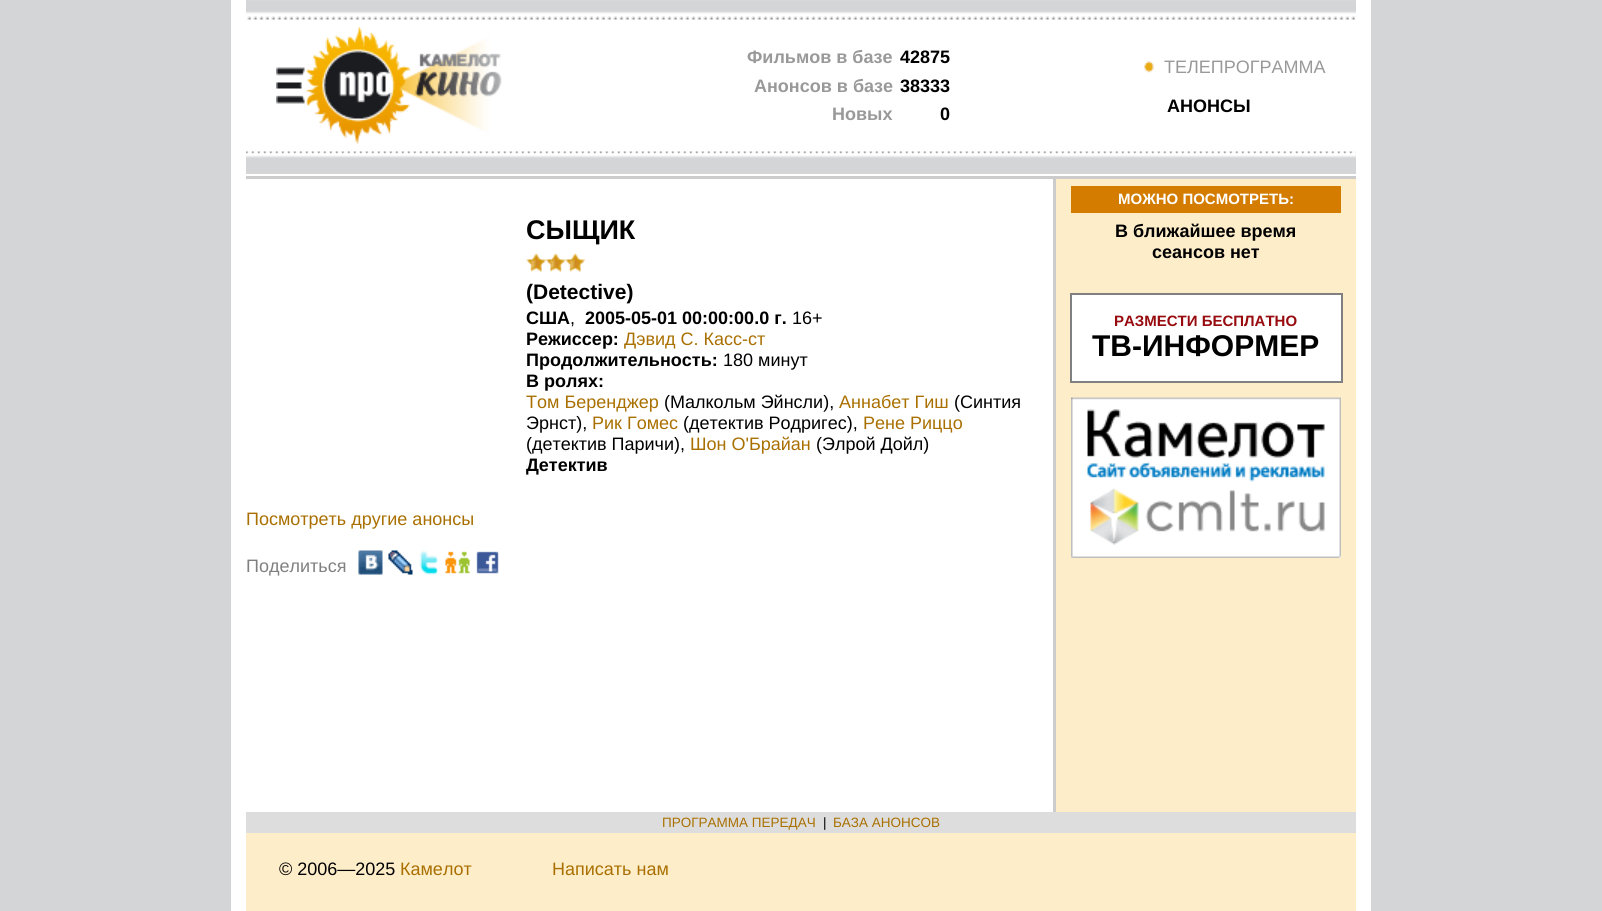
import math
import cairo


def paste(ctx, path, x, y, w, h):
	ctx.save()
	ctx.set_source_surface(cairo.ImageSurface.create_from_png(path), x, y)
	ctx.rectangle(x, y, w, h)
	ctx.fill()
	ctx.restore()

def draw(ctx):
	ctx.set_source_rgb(0.827, 0.835, 0.843)
	ctx.paint()
	ctx.set_source_rgb(1, 1, 1)
	ctx.rectangle(231, 0, 1140, 911)
	ctx.fill()
	paste(ctx, 'media/1.png', 246, 0, 1110, 20)
	paste(ctx, 'media/2.png', 276, 27, 226, 117)
	ctx.select_font_face('Liberation Sans', cairo.FONT_SLANT_NORMAL, cairo.FONT_WEIGHT_BOLD)
	ctx.set_font_size(18)
	ctx.set_source_rgb(0.6, 0.6, 0.6)
	ctx.move_to(747, 63)
	ctx.show_text('Фильмов в базе')
	ctx.set_source_rgb(0, 0, 0)
	ctx.move_to(900, 63)
	ctx.show_text('42875')
	ctx.set_source_rgb(0.6, 0.6, 0.6)
	ctx.move_to(754, 92)
	ctx.show_text('Анонсов в базе')
	ctx.set_source_rgb(0, 0, 0)
	ctx.move_to(900, 92)
	ctx.show_text('38333')
	ctx.set_source_rgb(0.6, 0.6, 0.6)
	ctx.move_to(832, 120)
	ctx.show_text('Новых')
	ctx.set_source_rgb(0, 0, 0)
	ctx.move_to(940, 120)
	ctx.show_text('0')
	paste(ctx, 'media/3.png', 1144, 61, 10, 12)
	ctx.select_font_face('Liberation Sans')
	ctx.set_source_rgb(0.6, 0.6, 0.6)
	ctx.move_to(1164, 73)
	ctx.show_text('ТЕЛЕПРОГРАММА')
	ctx.select_font_face('Liberation Sans', cairo.FONT_SLANT_NORMAL, cairo.FONT_WEIGHT_BOLD)
	ctx.set_source_rgb(0, 0, 0)
	ctx.move_to(1167, 112)
	ctx.show_text('АНОНСЫ')
	paste(ctx, 'media/4.png', 246, 151, 1110, 23)
	ctx.set_source_rgb(0.8, 0.8, 0.8)
	ctx.rectangle(246, 176, 1110, 3)
	ctx.fill()
	ctx.rectangle(1053, 176, 3, 636)
	ctx.fill()
	ctx.set_font_size(27)
	ctx.set_source_rgb(0, 0, 0)
	ctx.move_to(526, 239)
	ctx.show_text('СЫЩИК')
	paste(ctx, 'media/5.png', 526, 253, 59, 19)
	ctx.set_font_size(21)
	ctx.move_to(526, 299)
	ctx.show_text('(Detective)')
	ctx.set_font_size(18)
	ctx.move_to(526, 324)
	ctx.show_text('США')
	ctx.select_font_face('Liberation Sans')
	ctx.move_to(570, 324)
	ctx.show_text(',')
	ctx.select_font_face('Liberation Sans', cairo.FONT_SLANT_NORMAL, cairo.FONT_WEIGHT_BOLD)
	ctx.move_to(585, 324)
	ctx.show_text('2005-05-01 00:00:00.0 г.')
	ctx.select_font_face('Liberation Sans')
	ctx.move_to(792, 324)
	ctx.show_text('16+')
	ctx.select_font_face('Liberation Sans', cairo.FONT_SLANT_NORMAL, cairo.FONT_WEIGHT_BOLD)
	ctx.move_to(526, 345)
	ctx.show_text('Режиссер:')
	ctx.select_font_face('Liberation Sans')
	ctx.set_source_rgb(0.663, 0.439, 0.004)
	ctx.move_to(624, 345)
	ctx.show_text('Дэвид С. Касс-ст')
	ctx.select_font_face('Liberation Sans', cairo.FONT_SLANT_NORMAL, cairo.FONT_WEIGHT_BOLD)
	ctx.set_source_rgb(0, 0, 0)
	ctx.move_to(526, 366)
	ctx.show_text('Продолжительность:')
	ctx.select_font_face('Liberation Sans')
	ctx.move_to(723, 366)
	ctx.show_text('180 минут')
	ctx.select_font_face('Liberation Sans', cairo.FONT_SLANT_NORMAL, cairo.FONT_WEIGHT_BOLD)
	ctx.move_to(526, 387)
	ctx.show_text('В ролях:')
	ctx.select_font_face('Liberation Sans')
	ctx.set_source_rgb(0.663, 0.439, 0.004)
	ctx.move_to(526, 408)
	ctx.show_text('Том Беренджер')
	ctx.set_source_rgb(0, 0, 0)
	ctx.move_to(664, 408)
	ctx.show_text('(Малкольм Эйнсли),')
	ctx.set_source_rgb(0.663, 0.439, 0.004)
	ctx.move_to(839, 408)
	ctx.show_text('Аннабет Гиш')
	ctx.set_source_rgb(0, 0, 0)
	ctx.move_to(954, 408)
	ctx.show_text('(Синтия')
	ctx.move_to(526, 429)
	ctx.show_text('Эрнст),')
	ctx.set_source_rgb(0.663, 0.439, 0.004)
	ctx.move_to(592, 429)
	ctx.show_text('Рик Гомес')
	ctx.set_source_rgb(0, 0, 0)
	ctx.move_to(683, 429)
	ctx.show_text('(детектив Родригес),')
	ctx.set_source_rgb(0.663, 0.439, 0.004)
	ctx.move_to(863, 429)
	ctx.show_text('Рене Риццо')
	ctx.set_source_rgb(0, 0, 0)
	ctx.move_to(526, 450)
	ctx.show_text('(детектив Паричи),')
	ctx.set_source_rgb(0.663, 0.439, 0.004)
	ctx.move_to(690, 450)
	ctx.show_text('Шон О\'Брайан')
	ctx.set_source_rgb(0, 0, 0)
	ctx.move_to(816, 450)
	ctx.show_text('(Элрой Дойл)')
	ctx.select_font_face('Liberation Sans', cairo.FONT_SLANT_NORMAL, cairo.FONT_WEIGHT_BOLD)
	ctx.move_to(526, 471)
	ctx.show_text('Детектив')
	ctx.select_font_face('Liberation Sans')
	ctx.set_source_rgb(0.663, 0.439, 0.004)
	ctx.move_to(246, 525)
	ctx.show_text('Посмотреть другие анонсы')
	ctx.set_source_rgb(0.502, 0.502, 0.502)
	ctx.move_to(246, 572)
	ctx.show_text('Поделиться')
	paste(ctx, 'media/6.png', 358, 550, 25, 25)
	paste(ctx, 'media/7.png', 388, 550, 25, 25)
	paste(ctx, 'media/8.png', 419, 550, 20, 25)
	paste(ctx, 'media/9.png', 445, 551, 25, 23)
	paste(ctx, 'media/10.png', 476, 551, 23, 23)
	ctx.set_source_rgb(0.996, 0.929, 0.788)
	ctx.rectangle(1056, 179, 300, 633)
	ctx.fill()
	ctx.set_source_rgb(0.827, 0.486, 0)
	ctx.rectangle(1071, 186, 270, 27)
	ctx.fill()
	ctx.select_font_face('Liberation Sans', cairo.FONT_SLANT_NORMAL, cairo.FONT_WEIGHT_BOLD)
	ctx.set_font_size(15)
	ctx.set_source_rgb(1, 1, 1)
	ctx.move_to(1118, 204)
	ctx.show_text('МОЖНО ПОСМОТРЕТЬ:')
	ctx.set_font_size(18)
	ctx.set_source_rgb(0, 0, 0)
	ctx.move_to(1115, 237)
	ctx.show_text('В ближайшее время')
	ctx.move_to(1152, 258)
	ctx.show_text('сеансов нет')
	ctx.set_source_rgb(1, 1, 1)
	ctx.rectangle(1071, 294, 271, 88)
	ctx.fill_preserve()
	ctx.set_source_rgb(0.502, 0.502, 0.502)
	ctx.stroke()
	ctx.set_font_size(15)
	ctx.set_source_rgb(0.592, 0.043, 0.055)
	ctx.move_to(1114, 326)
	ctx.show_text('РАЗМЕСТИ БЕСПЛАТНО')
	ctx.set_font_size(30)
	ctx.set_source_rgb(0, 0, 0)
	ctx.move_to(1092, 356)
	ctx.show_text('ТВ-ИНФОРМЕР')
	paste(ctx, 'media/11.png', 1071, 397, 270, 161)
	ctx.set_source_rgb(0.867, 0.867, 0.867)
	ctx.rectangle(246, 812, 1110, 21)
	ctx.fill()
	ctx.select_font_face('Liberation Sans')
	ctx.set_font_size(13.5)
	ctx.set_source_rgb(0.663, 0.439, 0.004)
	ctx.move_to(662, 827)
	ctx.show_text('ПРОГРАММА ПЕРЕДАЧ')
	ctx.set_source_rgb(0, 0, 0)
	ctx.move_to(823, 827)
	ctx.show_text('|')
	ctx.set_source_rgb(0.663, 0.439, 0.004)
	ctx.move_to(833, 827)
	ctx.show_text('БАЗА АНОНСОВ')
	ctx.set_source_rgb(0.996, 0.929, 0.788)
	ctx.rectangle(246, 833, 1110, 78)
	ctx.fill()
	ctx.set_font_size(18)
	ctx.set_source_rgb(0, 0, 0)
	ctx.move_to(279, 875)
	ctx.show_text('© 2006—2025')
	ctx.set_source_rgb(0.663, 0.439, 0.004)
	ctx.move_to(400, 875)
	ctx.show_text('Камелот')
	ctx.move_to(552, 875)
	ctx.show_text('Написать нам')


surface = cairo.ImageSurface(cairo.FORMAT_RGB24, 1602, 911)
ctx = cairo.Context(surface)
options = cairo.FontOptions()
options.set_hint_metrics(cairo.HINT_METRICS_OFF)
options.set_hint_style(cairo.HINT_STYLE_NONE)
ctx.set_font_options(options)
ctx.set_miter_limit(4)
draw(ctx)
surface.write_to_png('image.png')
